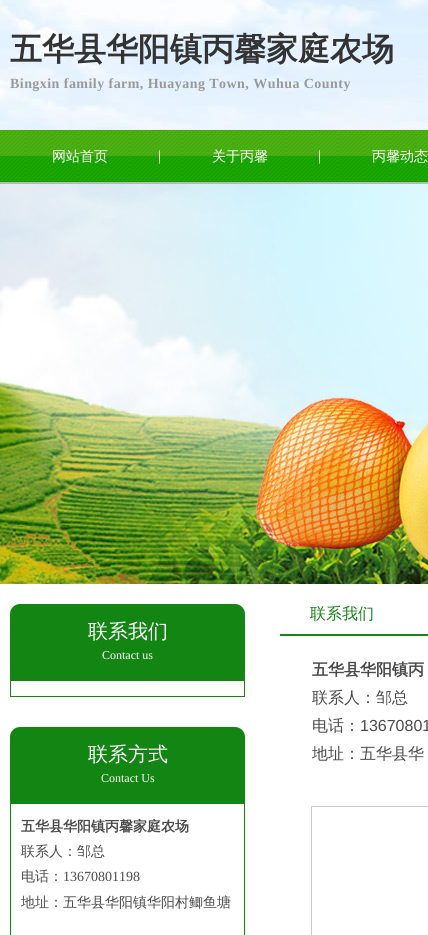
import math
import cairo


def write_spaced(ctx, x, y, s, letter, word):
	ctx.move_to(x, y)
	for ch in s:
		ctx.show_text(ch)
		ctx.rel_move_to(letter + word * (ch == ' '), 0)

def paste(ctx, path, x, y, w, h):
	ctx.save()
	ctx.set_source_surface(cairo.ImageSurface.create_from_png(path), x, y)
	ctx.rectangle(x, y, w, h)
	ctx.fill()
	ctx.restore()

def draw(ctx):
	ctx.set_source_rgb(1, 1, 1)
	ctx.paint()
	paste(ctx, 'media/1.png', 0, 0, 428, 130)
	ctx.select_font_face('WenQuanYi Zen Hei', cairo.FONT_SLANT_NORMAL, cairo.FONT_WEIGHT_BOLD)
	ctx.set_font_size(32)
	ctx.set_source_rgb(0.2, 0.2, 0.2)
	ctx.move_to(10, 60)
	ctx.show_text('五华县华阳镇丙馨家庭农场')
	ctx.select_font_face('Liberation Serif', cairo.FONT_SLANT_NORMAL, cairo.FONT_WEIGHT_BOLD)
	ctx.set_font_size(14)
	ctx.set_source_rgb(0.6, 0.6, 0.6)
	write_spaced(ctx, 10, 88, 'Bingxin family farm, Huayang Town, Wuhua County', 0.45, 0)
	paste(ctx, 'media/2.png', 0, 130, 428, 54)
	paste(ctx, 'media/3.png', 159, 150, 1, 14)
	ctx.select_font_face('WenQuanYi Zen Hei Medium')
	ctx.set_source_rgb(1, 1, 1)
	ctx.move_to(52, 161)
	ctx.show_text('网站首页')
	paste(ctx, 'media/4.png', 319, 150, 1, 14)
	ctx.move_to(212, 161)
	ctx.show_text('关于丙馨')
	ctx.move_to(372, 161)
	ctx.show_text('丙馨动态')
	paste(ctx, 'media/5.png', 0, 184, 428, 400)
	ctx.set_source_rgb(0.078, 0.522, 0.075)
	ctx.new_path()
	ctx.move_to(20, 604)
	ctx.line_to(235, 604)
	ctx.curve_to(240.5, 604, 245, 608.5, 245, 614)
	ctx.line_to(245, 680)
	ctx.line_to(10, 680)
	ctx.line_to(10, 614)
	ctx.curve_to(10, 608.5, 14.5, 604, 20, 604)
	ctx.close_path()
	ctx.fill()
	ctx.set_font_size(20)
	ctx.set_source_rgb(1, 1, 1)
	ctx.move_to(88, 638)
	ctx.show_text('联系我们')
	ctx.select_font_face('Liberation Serif')
	ctx.set_font_size(12)
	ctx.move_to(102, 659)
	ctx.show_text('Contact us')
	ctx.rectangle(10.5, 680.5, 234, 16)
	ctx.set_source_rgb(0.078, 0.522, 0.075)
	ctx.set_line_width(1)
	ctx.stroke()
	ctx.new_path()
	ctx.move_to(20, 727)
	ctx.line_to(235, 727)
	ctx.curve_to(240.5, 727, 245, 731.5, 245, 737)
	ctx.line_to(245, 803)
	ctx.line_to(10, 803)
	ctx.line_to(10, 737)
	ctx.curve_to(10, 731.5, 14.5, 727, 20, 727)
	ctx.close_path()
	ctx.fill()
	ctx.select_font_face('WenQuanYi Zen Hei Medium')
	ctx.set_font_size(20)
	ctx.set_source_rgb(1, 1, 1)
	ctx.move_to(88, 761)
	ctx.show_text('联系方式')
	ctx.select_font_face('Liberation Serif')
	ctx.set_font_size(12)
	ctx.move_to(101, 782)
	ctx.show_text('Contact Us')
	ctx.rectangle(10.5, 803.5, 234, 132)
	ctx.set_source_rgb(0.078, 0.522, 0.075)
	ctx.stroke()
	ctx.select_font_face('WenQuanYi Zen Hei', cairo.FONT_SLANT_NORMAL, cairo.FONT_WEIGHT_BOLD)
	ctx.set_font_size(14)
	ctx.set_source_rgb(0.294, 0.29, 0.29)
	ctx.move_to(21, 831)
	ctx.show_text('五华县华阳镇丙馨家庭农场')
	ctx.select_font_face('WenQuanYi Zen Hei Medium')
	ctx.move_to(21, 856)
	ctx.show_text('联系人：邹总')
	ctx.move_to(21, 881)
	ctx.show_text('电话：')
	ctx.select_font_face('Liberation Serif')
	ctx.move_to(63, 881)
	ctx.show_text('13670801198')
	ctx.select_font_face('WenQuanYi Zen Hei Medium')
	ctx.move_to(21, 907)
	ctx.show_text('地址：五华县华阳镇华阳村鲫鱼塘')
	ctx.set_source_rgb(0.078, 0.522, 0.075)
	ctx.rectangle(280, 634, 148, 2)
	ctx.fill()
	ctx.set_font_size(16)
	ctx.move_to(310, 619)
	ctx.show_text('联系我们')
	ctx.select_font_face('WenQuanYi Zen Hei', cairo.FONT_SLANT_NORMAL, cairo.FONT_WEIGHT_BOLD)
	ctx.set_source_rgb(0.294, 0.29, 0.29)
	ctx.move_to(312, 675)
	ctx.show_text('五华县华阳镇丙')
	ctx.select_font_face('WenQuanYi Zen Hei Medium')
	ctx.move_to(312, 703)
	ctx.show_text('联系人：邹总')
	ctx.move_to(312, 731)
	ctx.show_text('电话：')
	ctx.select_font_face('Liberation Sans')
	ctx.move_to(360, 731)
	ctx.show_text('13670801')
	ctx.select_font_face('WenQuanYi Zen Hei Medium')
	ctx.move_to(312, 759)
	ctx.show_text('地址：五华县华')
	ctx.rectangle(311.5, 806.5, 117, 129)
	ctx.set_source_rgb(0.8, 0.8, 0.8)
	ctx.stroke()


surface = cairo.ImageSurface(cairo.FORMAT_RGB24, 428, 935)
ctx = cairo.Context(surface)
options = cairo.FontOptions()
options.set_hint_metrics(cairo.HINT_METRICS_OFF)
options.set_hint_style(cairo.HINT_STYLE_NONE)
ctx.set_font_options(options)
ctx.set_miter_limit(4)
draw(ctx)
surface.write_to_png('image.png')
